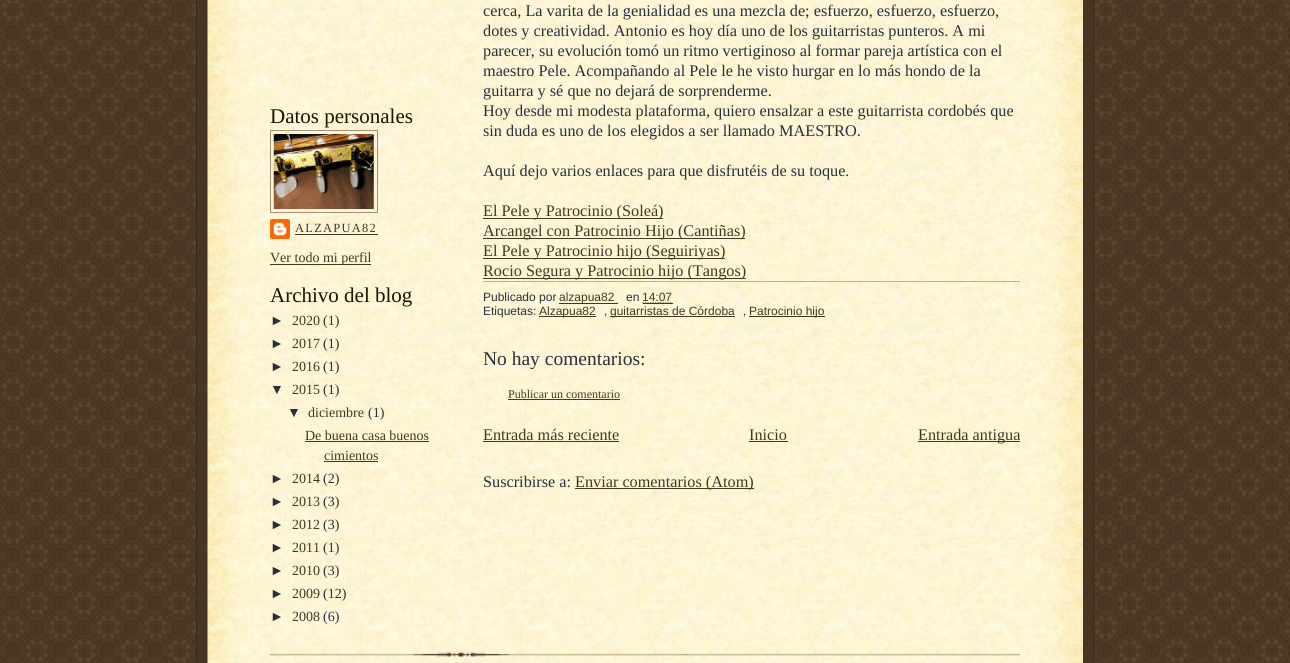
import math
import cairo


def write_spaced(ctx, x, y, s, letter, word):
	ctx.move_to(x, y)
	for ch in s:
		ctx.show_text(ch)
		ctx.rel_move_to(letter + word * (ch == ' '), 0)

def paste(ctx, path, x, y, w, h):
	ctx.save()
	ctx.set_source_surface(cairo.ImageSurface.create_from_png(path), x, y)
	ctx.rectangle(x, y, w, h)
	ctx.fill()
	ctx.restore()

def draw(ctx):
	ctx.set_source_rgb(1, 1, 1)
	ctx.paint()
	paste(ctx, 'media/1.png', 0, 0, 1290, 663)
	ctx.set_source_rgb(0.278, 0.212, 0.141)
	ctx.rectangle(197, 0, 896, 663)
	ctx.fill()
	ctx.set_source_rgb(0.2, 0.165, 0.141)
	ctx.rectangle(1093, 0, 1, 663)
	ctx.rectangle(196, 0, 1, 663)
	ctx.fill()
	ctx.set_source_rgb(1, 0.953, 0.859)
	ctx.rectangle(1082, 0, 1, 663)
	ctx.fill()
	paste(ctx, 'media/2.png', 207, 0, 876, 663)
	ctx.select_font_face('Liberation Serif')
	ctx.set_font_size(21)
	ctx.set_source_rgb(0.129, 0.067, 0.016)
	ctx.move_to(270, 123)
	ctx.show_text('Datos personales')
	ctx.rectangle(270.5, 130.5, 107, 82)
	ctx.set_source_rgb(0.635, 0.565, 0.49)
	ctx.set_line_width(1)
	ctx.stroke()
	paste(ctx, 'media/3.png', 273, 134, 101, 75)
	paste(ctx, 'media/4.png', 270, 219, 20, 20)
	ctx.set_font_size(12.5)
	ctx.set_source_rgb(0.278, 0.212, 0.141)
	write_spaced(ctx, 295, 232, 'ALZAPUA82', 1.25, 0)
	ctx.rectangle(295, 234, 83, 1)
	ctx.fill()
	ctx.rectangle(270, 264, 101, 1)
	ctx.fill()
	ctx.set_font_size(14)
	ctx.move_to(270, 262)
	ctx.show_text('Ver todo mi perfil')
	ctx.set_font_size(21)
	ctx.set_source_rgb(0.129, 0.067, 0.016)
	ctx.move_to(270, 302)
	ctx.show_text('Archivo del blog')
	ctx.select_font_face('Liberation Sans')
	ctx.set_font_size(14)
	ctx.set_source_rgb(0.161, 0.188, 0.231)
	ctx.move_to(270, 325)
	ctx.show_text('►')
	ctx.select_font_face('Liberation Serif')
	ctx.set_source_rgb(0.278, 0.212, 0.141)
	ctx.move_to(292, 325)
	ctx.show_text('2020')
	ctx.set_source_rgb(0.161, 0.188, 0.231)
	ctx.move_to(323, 325)
	ctx.show_text('(1)')
	ctx.select_font_face('Liberation Sans')
	ctx.move_to(270, 348)
	ctx.show_text('►')
	ctx.select_font_face('Liberation Serif')
	ctx.set_source_rgb(0.278, 0.212, 0.141)
	ctx.move_to(292, 348)
	ctx.show_text('2017')
	ctx.set_source_rgb(0.161, 0.188, 0.231)
	ctx.move_to(323, 348)
	ctx.show_text('(1)')
	ctx.select_font_face('Liberation Sans')
	ctx.move_to(270, 371)
	ctx.show_text('►')
	ctx.select_font_face('Liberation Serif')
	ctx.set_source_rgb(0.278, 0.212, 0.141)
	ctx.move_to(292, 371)
	ctx.show_text('2016')
	ctx.set_source_rgb(0.161, 0.188, 0.231)
	ctx.move_to(323, 371)
	ctx.show_text('(1)')
	ctx.select_font_face('Liberation Sans')
	ctx.move_to(270, 394)
	ctx.show_text('▼')
	ctx.select_font_face('Liberation Serif')
	ctx.set_source_rgb(0.278, 0.212, 0.141)
	ctx.move_to(292, 394)
	ctx.show_text('2015')
	ctx.set_source_rgb(0.161, 0.188, 0.231)
	ctx.move_to(323, 394)
	ctx.show_text('(1)')
	ctx.select_font_face('Liberation Sans')
	ctx.move_to(287, 417)
	ctx.show_text('▼')
	ctx.select_font_face('Liberation Serif')
	ctx.set_source_rgb(0.278, 0.212, 0.141)
	ctx.move_to(308, 417)
	ctx.show_text('diciembre')
	ctx.set_source_rgb(0.161, 0.188, 0.231)
	ctx.move_to(368, 417)
	ctx.show_text('(1)')
	ctx.set_source_rgb(0.278, 0.212, 0.141)
	ctx.move_to(305, 440)
	ctx.show_text('De buena casa buenos')
	ctx.rectangle(305, 441, 124, 1)
	ctx.fill()
	ctx.move_to(324, 460)
	ctx.show_text('cimientos')
	ctx.rectangle(324, 461, 54, 1)
	ctx.fill()
	ctx.select_font_face('Liberation Sans')
	ctx.set_source_rgb(0.161, 0.188, 0.231)
	ctx.move_to(270, 483)
	ctx.show_text('►')
	ctx.select_font_face('Liberation Serif')
	ctx.set_source_rgb(0.278, 0.212, 0.141)
	ctx.move_to(292, 483)
	ctx.show_text('2014')
	ctx.set_source_rgb(0.161, 0.188, 0.231)
	ctx.move_to(323, 483)
	ctx.show_text('(2)')
	ctx.select_font_face('Liberation Sans')
	ctx.move_to(270, 506)
	ctx.show_text('►')
	ctx.select_font_face('Liberation Serif')
	ctx.set_source_rgb(0.278, 0.212, 0.141)
	ctx.move_to(292, 506)
	ctx.show_text('2013')
	ctx.set_source_rgb(0.161, 0.188, 0.231)
	ctx.move_to(323, 506)
	ctx.show_text('(3)')
	ctx.select_font_face('Liberation Sans')
	ctx.move_to(270, 529)
	ctx.show_text('►')
	ctx.select_font_face('Liberation Serif')
	ctx.set_source_rgb(0.278, 0.212, 0.141)
	ctx.move_to(292, 529)
	ctx.show_text('2012')
	ctx.set_source_rgb(0.161, 0.188, 0.231)
	ctx.move_to(323, 529)
	ctx.show_text('(3)')
	ctx.select_font_face('Liberation Sans')
	ctx.move_to(270, 552)
	ctx.show_text('►')
	ctx.select_font_face('Liberation Serif')
	ctx.set_source_rgb(0.278, 0.212, 0.141)
	ctx.move_to(292, 552)
	ctx.show_text('2011')
	ctx.set_source_rgb(0.161, 0.188, 0.231)
	ctx.move_to(323, 552)
	ctx.show_text('(1)')
	ctx.select_font_face('Liberation Sans')
	ctx.move_to(270, 575)
	ctx.show_text('►')
	ctx.select_font_face('Liberation Serif')
	ctx.set_source_rgb(0.278, 0.212, 0.141)
	ctx.move_to(292, 575)
	ctx.show_text('2010')
	ctx.set_source_rgb(0.161, 0.188, 0.231)
	ctx.move_to(323, 575)
	ctx.show_text('(3)')
	ctx.select_font_face('Liberation Sans')
	ctx.move_to(270, 598)
	ctx.show_text('►')
	ctx.select_font_face('Liberation Serif')
	ctx.set_source_rgb(0.278, 0.212, 0.141)
	ctx.move_to(292, 598)
	ctx.show_text('2009')
	ctx.set_source_rgb(0.161, 0.188, 0.231)
	ctx.move_to(323, 598)
	ctx.show_text('(12)')
	ctx.select_font_face('Liberation Sans')
	ctx.move_to(270, 621)
	ctx.show_text('►')
	ctx.select_font_face('Liberation Serif')
	ctx.set_source_rgb(0.278, 0.212, 0.141)
	ctx.move_to(292, 621)
	ctx.show_text('2008')
	ctx.set_source_rgb(0.161, 0.188, 0.231)
	ctx.move_to(323, 621)
	ctx.show_text('(6)')
	ctx.set_font_size(16.25)
	for x, y, s in [
		(483, 16, 'cerca, La varita de la genialidad es una mezcla de; esfuerzo, esfuerzo, esfuerzo,'),
		(483, 36, 'dotes y creatividad. Antonio es hoy día uno de los guitarristas punteros. A mi'),
		(483, 56, 'parecer, su evolución tomó un ritmo vertiginoso al formar pareja artística con el'),
		(483, 76, 'maestro Pele. Acompañando al Pele le he visto hurgar en lo más hondo de la'),
		(483, 96, 'guitarra y sé que no dejará de sorprenderme.'),
		(483, 116, 'Hoy desde mi modesta plataforma, quiero ensalzar a este guitarrista cordobés que'),
		(483, 136, 'sin duda es uno de los elegidos a ser llamado MAESTRO.'),
		(483, 176, 'Aquí dejo varios enlaces para que disfrutéis de su toque.'),
	]:
		ctx.move_to(x, y)
		ctx.show_text(s)
	ctx.set_source_rgb(0.278, 0.212, 0.141)
	ctx.rectangle(483, 218, 180, 1)
	ctx.fill()
	ctx.move_to(483, 216)
	ctx.show_text('El Pele y Patrocinio (Soleá)')
	ctx.rectangle(483, 238, 262, 1)
	ctx.fill()
	ctx.move_to(483, 236)
	ctx.show_text('Arcangel con Patrocinio Hijo (Cantiñas)')
	ctx.rectangle(483, 258, 242, 1)
	ctx.fill()
	ctx.move_to(483, 256)
	ctx.show_text('El Pele y Patrocinio hijo (Seguiriyas)')
	ctx.rectangle(483, 278, 263, 1)
	ctx.fill()
	ctx.move_to(483, 276)
	ctx.show_text('Rocio Segura y Patrocinio hijo (Tangos)')
	ctx.set_source_rgb(0.749, 0.694, 0.525)
	ctx.rectangle(483, 281, 537, 1)
	ctx.fill()
	ctx.select_font_face('Liberation Sans')
	ctx.set_font_size(12)
	ctx.set_source_rgb(0.161, 0.188, 0.231)
	ctx.move_to(483, 301)
	ctx.show_text('Publicado por')
	ctx.set_source_rgb(0.278, 0.212, 0.141)
	ctx.rectangle(559, 303, 59, 1)
	ctx.fill()
	ctx.move_to(559, 301)
	ctx.show_text('alzapua82')
	ctx.set_source_rgb(0.161, 0.188, 0.231)
	ctx.move_to(626, 301)
	ctx.show_text('en')
	ctx.set_source_rgb(0.278, 0.212, 0.141)
	ctx.move_to(642, 301)
	ctx.show_text('14:07')
	ctx.new_path()
	ctx.move_to(642.5, 303)
	ctx.line_to(672.5, 303)
	ctx.set_line_width(1.2)
	ctx.set_dash([1.25, 1.25])
	ctx.stroke()
	ctx.rectangle(643, 303, 30, 1)
	ctx.fill()
	ctx.set_source_rgb(0.161, 0.188, 0.231)
	ctx.move_to(483, 315)
	ctx.show_text('Etiquetas:')
	ctx.set_source_rgb(0.278, 0.212, 0.141)
	ctx.rectangle(539, 316, 57, 1)
	ctx.fill()
	ctx.move_to(539, 315)
	ctx.show_text('Alzapua82')
	ctx.set_source_rgb(0.161, 0.188, 0.231)
	ctx.move_to(604, 315)
	ctx.show_text(',')
	ctx.set_source_rgb(0.278, 0.212, 0.141)
	ctx.rectangle(610, 316, 125, 1)
	ctx.fill()
	ctx.move_to(610, 315)
	ctx.show_text('guitarristas de Córdoba')
	ctx.set_source_rgb(0.161, 0.188, 0.231)
	ctx.move_to(743, 315)
	ctx.show_text(',')
	ctx.set_source_rgb(0.278, 0.212, 0.141)
	ctx.rectangle(749, 316, 76, 1)
	ctx.fill()
	ctx.move_to(749, 315)
	ctx.show_text('Patrocinio hijo')
	ctx.select_font_face('Liberation Serif')
	ctx.set_font_size(19.5)
	ctx.set_source_rgb(0.161, 0.188, 0.231)
	ctx.move_to(483, 365)
	ctx.show_text('No hay comentarios:')
	ctx.set_font_size(12)
	ctx.set_source_rgb(0.278, 0.212, 0.141)
	ctx.move_to(508, 398)
	ctx.show_text('Publicar un comentario')
	ctx.rectangle(508, 399, 112, 1)
	ctx.fill()
	ctx.set_font_size(16.25)
	ctx.move_to(483, 440)
	ctx.show_text('Entrada más reciente')
	ctx.rectangle(483, 441, 136, 1)
	ctx.fill()
	ctx.move_to(749, 440)
	ctx.show_text('Inicio')
	ctx.rectangle(749, 441, 39, 1)
	ctx.fill()
	ctx.rectangle(918, 441, 102, 1)
	ctx.fill()
	ctx.move_to(918, 440)
	ctx.show_text('Entrada antigua')
	ctx.set_source_rgb(0.161, 0.188, 0.231)
	ctx.move_to(483, 487)
	ctx.show_text('Suscribirse a:')
	ctx.set_source_rgb(0.278, 0.212, 0.141)
	ctx.rectangle(575, 488, 179, 1)
	ctx.fill()
	ctx.move_to(575, 487)
	ctx.show_text('Enviar comentarios (Atom)')
	paste(ctx, 'media/5.png', 270, 652, 750, 5)


surface = cairo.ImageSurface(cairo.FORMAT_RGB24, 1290, 663)
ctx = cairo.Context(surface)
options = cairo.FontOptions()
options.set_hint_metrics(cairo.HINT_METRICS_OFF)
options.set_hint_style(cairo.HINT_STYLE_NONE)
ctx.set_font_options(options)
ctx.set_miter_limit(4)
draw(ctx)
surface.write_to_png('image.png')
